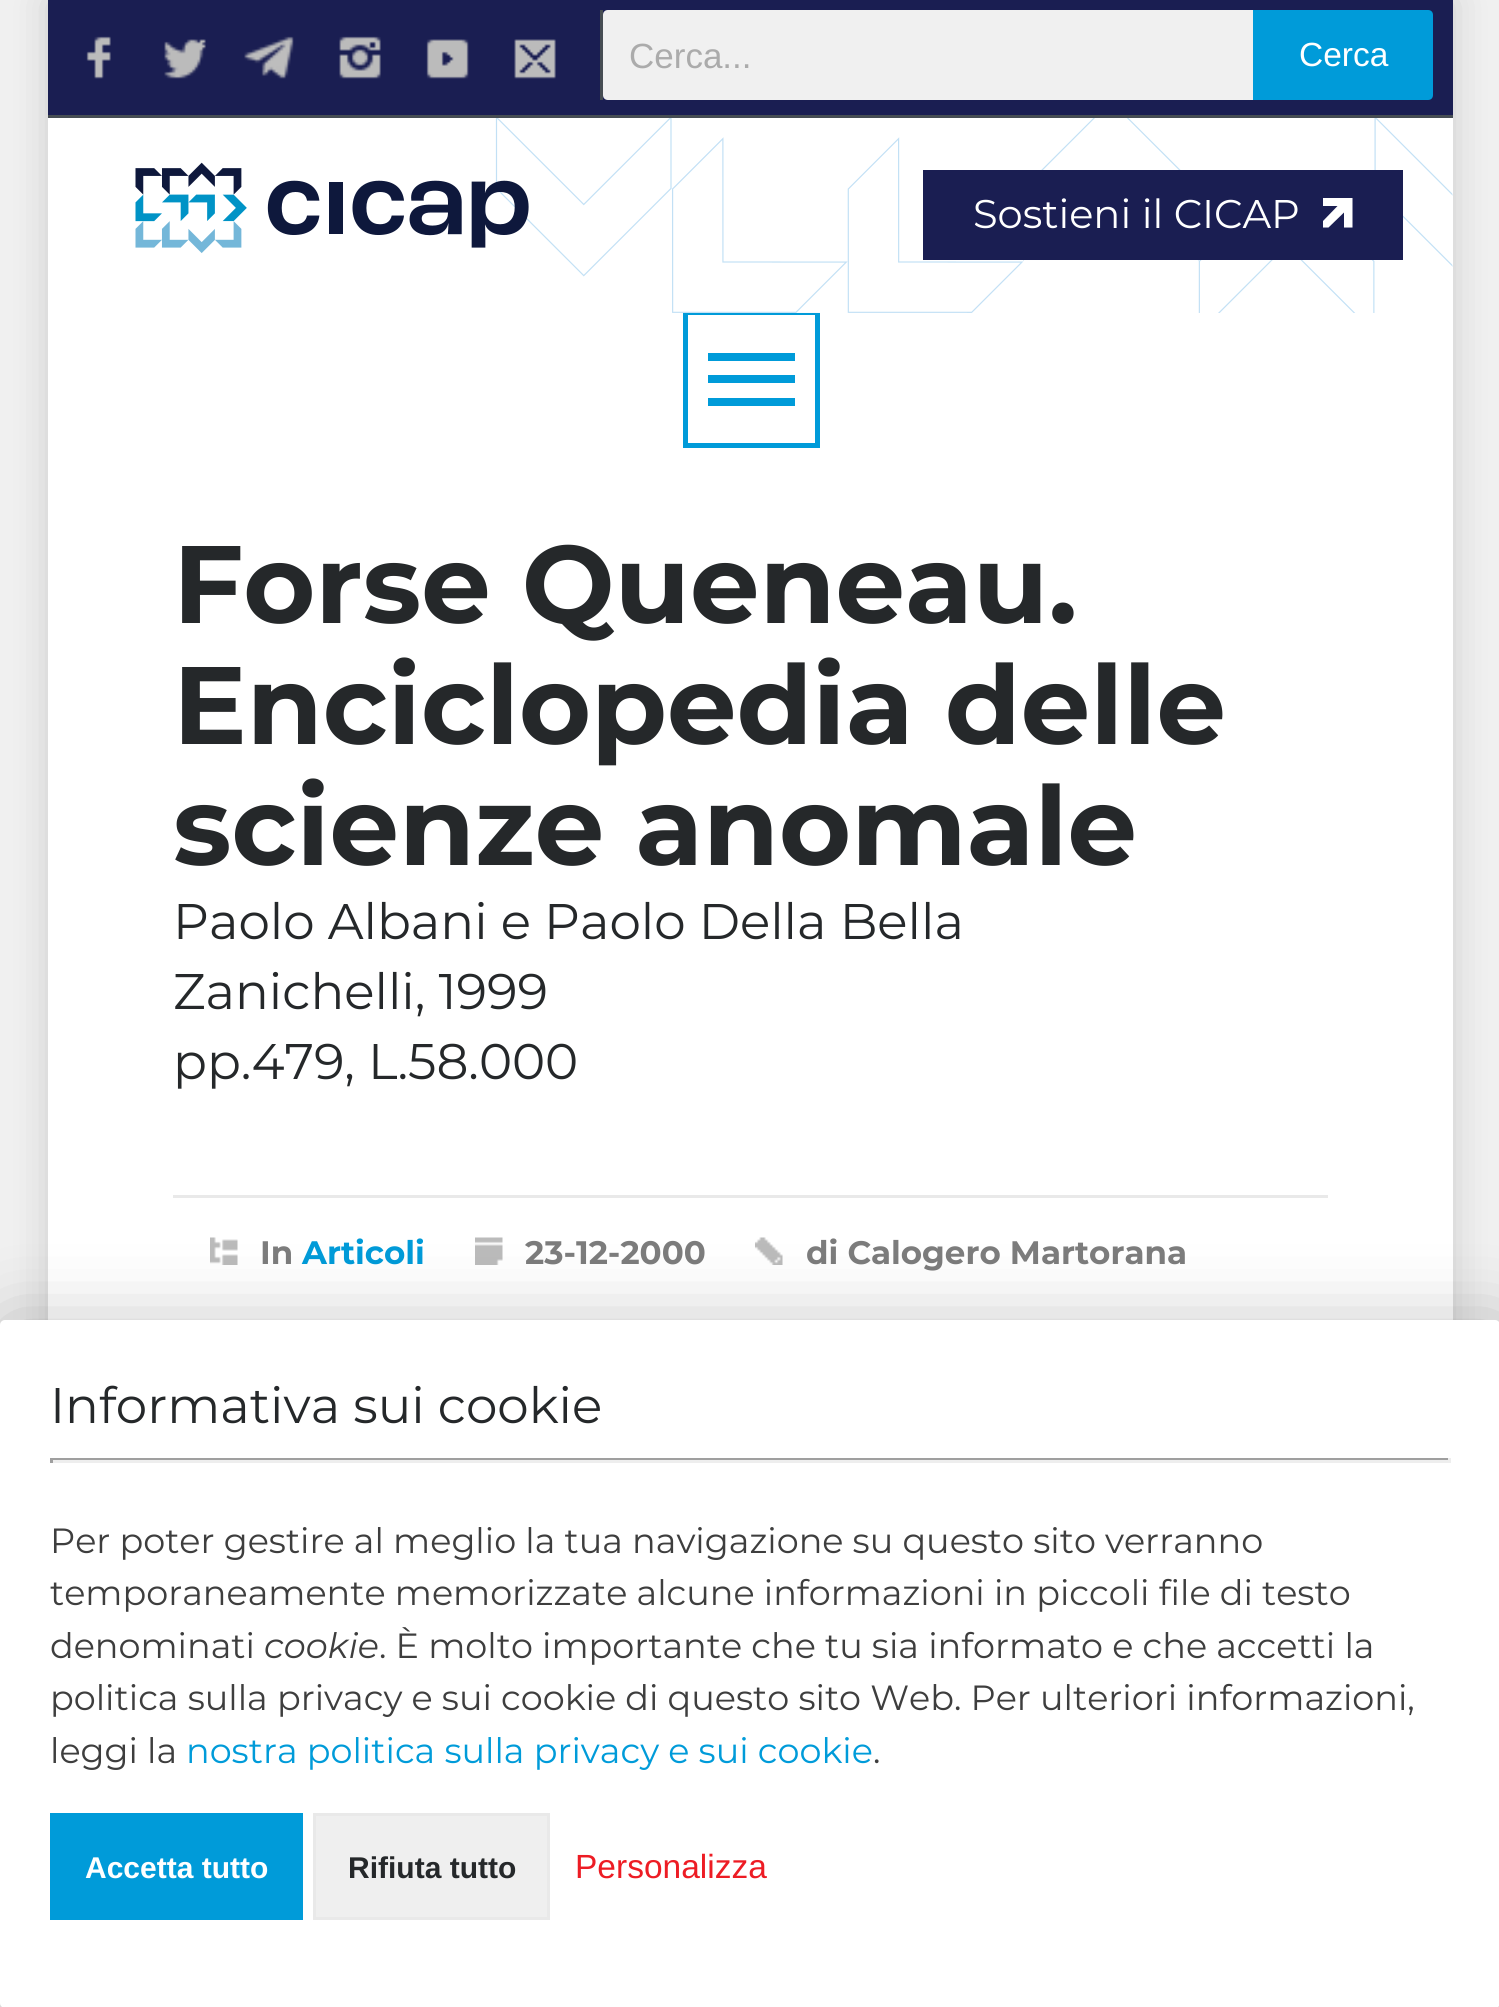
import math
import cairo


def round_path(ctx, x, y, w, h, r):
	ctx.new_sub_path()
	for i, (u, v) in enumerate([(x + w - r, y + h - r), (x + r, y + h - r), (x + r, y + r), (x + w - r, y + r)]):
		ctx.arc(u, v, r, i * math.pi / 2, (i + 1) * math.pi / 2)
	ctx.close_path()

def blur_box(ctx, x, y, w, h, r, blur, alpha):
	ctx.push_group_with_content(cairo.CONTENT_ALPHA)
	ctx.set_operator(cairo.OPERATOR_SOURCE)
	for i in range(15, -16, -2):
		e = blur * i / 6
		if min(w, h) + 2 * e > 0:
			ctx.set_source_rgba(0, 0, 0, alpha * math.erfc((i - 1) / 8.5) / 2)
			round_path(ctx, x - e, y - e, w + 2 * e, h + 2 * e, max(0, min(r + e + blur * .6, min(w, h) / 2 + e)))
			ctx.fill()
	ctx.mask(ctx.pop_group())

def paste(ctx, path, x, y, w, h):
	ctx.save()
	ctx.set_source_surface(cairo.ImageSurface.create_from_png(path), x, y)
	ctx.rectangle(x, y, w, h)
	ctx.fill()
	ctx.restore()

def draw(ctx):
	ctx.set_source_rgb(0.941, 0.941, 0.941)
	ctx.paint()
	ctx.set_source_rgb(0, 0, 0)
	blur_box(ctx, 48, 0, 1405, 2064, 0, 19, 0.15)
	ctx.set_source_rgb(1, 1, 1)
	ctx.rectangle(48, 118, 1405, 1202)
	ctx.fill()
	ctx.set_source_rgb(0.102, 0.118, 0.322)
	ctx.rectangle(48, 0, 1405, 115)
	ctx.fill()
	paste(ctx, 'media/1.png', 86, 36, 25, 43)
	paste(ctx, 'media/2.png', 164, 39, 42, 40)
	paste(ctx, 'media/3.png', 244, 36, 50, 43)
	paste(ctx, 'media/4.png', 339, 36, 42, 43)
	paste(ctx, 'media/5.png', 426, 39, 43, 40)
	paste(ctx, 'media/6.png', 514, 39, 42, 40)
	ctx.set_source_rgb(0.275, 0.302, 0.325)
	ctx.rectangle(600, 10, 3, 90)
	ctx.fill()
	ctx.set_source_rgb(0.941, 0.941, 0.941)
	ctx.new_path()
	ctx.move_to(608, 10)
	ctx.line_to(1253, 10)
	ctx.line_to(1253, 100)
	ctx.line_to(608, 100)
	ctx.curve_to(605, 100, 603, 98, 603, 95)
	ctx.line_to(603, 15)
	ctx.curve_to(603, 12, 605, 10, 608, 10)
	ctx.close_path()
	ctx.fill()
	ctx.select_font_face('Liberation Sans')
	ctx.set_font_size(35)
	ctx.set_source_rgb(0.671, 0.671, 0.671)
	ctx.move_to(629, 68)
	ctx.show_text('Cerca...')
	ctx.set_source_rgb(0, 0.608, 0.851)
	ctx.new_path()
	ctx.move_to(1253, 10)
	ctx.line_to(1428, 10)
	ctx.curve_to(1431, 10, 1433, 12, 1433, 15)
	ctx.line_to(1433, 95)
	ctx.curve_to(1433, 98, 1431, 100, 1428, 100)
	ctx.line_to(1253, 100)
	ctx.close_path()
	ctx.fill()
	ctx.set_font_size(33.5)
	ctx.set_source_rgb(1, 1, 1)
	ctx.move_to(1299, 66)
	ctx.show_text('Cerca')
	ctx.set_source_rgb(0.275, 0.302, 0.325)
	ctx.rectangle(48, 115, 1405, 3)
	ctx.fill()
	ctx.rectangle(685.5, 312.5, 132, 133)
	ctx.set_source_rgb(0, 0.608, 0.851)
	ctx.set_line_width(5)
	ctx.stroke()
	paste(ctx, 'media/7.png', 135, 118, 1318, 195)
	ctx.set_source_rgb(0.102, 0.118, 0.322)
	ctx.rectangle(923, 170, 480, 90)
	ctx.fill()
	ctx.select_font_face('Montserrat')
	ctx.set_font_size(40)
	ctx.set_source_rgb(1, 1, 1)
	ctx.move_to(973, 228)
	ctx.show_text('Sostieni il CICAP')
	ctx.save()
	ctx.rectangle(1323, 198, 30, 30)
	ctx.clip()
	ctx.new_path()
	ctx.move_to(1352.5, 227.5)
	ctx.line_to(1352.5, 197.5)
	ctx.line_to(1322.5, 197.5)
	ctx.line_to(1322.5, 206)
	ctx.line_to(1337.5, 206)
	ctx.line_to(1322.5, 221.5)
	ctx.line_to(1322.5, 227.5)
	ctx.line_to(1328.5, 227.5)
	ctx.line_to(1344, 212.5)
	ctx.line_to(1344, 227.5)
	ctx.close_path()
	ctx.fill()
	ctx.restore()
	ctx.set_source_rgb(0, 0.608, 0.851)
	ctx.rectangle(708, 353, 87, 8)
	ctx.rectangle(708, 375, 87, 8)
	ctx.rectangle(708, 398, 87, 8)
	ctx.fill()
	ctx.select_font_face('Montserrat', cairo.FONT_SLANT_NORMAL, cairo.FONT_WEIGHT_BOLD)
	ctx.set_font_size(110)
	ctx.set_source_rgb(0.145, 0.157, 0.165)
	for x, y, s in [
		(173, 623, 'Forse Queneau.'),
		(173, 744, 'Enciclopedia delle'),
		(173, 865, 'scienze anomale'),
	]:
		ctx.move_to(x, y)
		ctx.show_text(s)
	ctx.select_font_face('Montserrat')
	ctx.set_font_size(50)
	for x, y, s in [
		(173, 939, 'Paolo Albani e Paolo Della Bella'),
		(173, 1009, 'Zanichelli, 1999'),
		(173, 1079, 'pp.479, L.58.000'),
	]:
		ctx.move_to(x, y)
		ctx.show_text(s)
	ctx.set_source_rgb(0.914, 0.914, 0.914)
	ctx.rectangle(173, 1195, 1155, 3)
	ctx.fill()
	paste(ctx, 'media/8.png', 210, 1237, 28, 28)
	ctx.select_font_face('Montserrat', cairo.FONT_SLANT_NORMAL, cairo.FONT_WEIGHT_BOLD)
	ctx.set_font_size(32.5)
	ctx.set_source_rgb(0.486, 0.486, 0.486)
	ctx.move_to(260, 1264)
	ctx.show_text('In')
	ctx.set_source_rgb(0, 0.608, 0.851)
	ctx.move_to(302, 1264)
	ctx.show_text('Articoli')
	paste(ctx, 'media/9.png', 475, 1237, 28, 28)
	ctx.set_source_rgb(0.486, 0.486, 0.486)
	ctx.move_to(525, 1264)
	ctx.show_text('23-12-2000')
	paste(ctx, 'media/10.png', 755, 1237, 28, 28)
	ctx.move_to(806, 1264)
	ctx.show_text('di Calogero Martorana')
	ctx.set_source_rgb(0, 0, 0)
	blur_box(ctx, 5, 1325, 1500, 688, 5, 37.5, 0.25)
	ctx.set_source_rgb(1, 1, 1)
	round_path(ctx, 0, 1320, 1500, 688, 5)
	ctx.fill()
	ctx.select_font_face('Montserrat')
	ctx.set_font_size(50)
	ctx.set_source_rgb(0.145, 0.157, 0.165)
	ctx.move_to(50, 1423)
	ctx.show_text('Informativa sui cookie')
	ctx.set_source_rgb(0.624, 0.624, 0.624)
	ctx.rectangle(50, 1458, 1400, 2)
	ctx.fill()
	ctx.set_source_rgb(0.933, 0.933, 0.933)
	ctx.rectangle(1448, 1458, 3, 5)
	ctx.rectangle(50, 1460, 1400, 3)
	ctx.fill()
	ctx.set_source_rgb(0.624, 0.624, 0.624)
	ctx.rectangle(50, 1458, 3, 5)
	ctx.fill()
	ctx.set_font_size(35)
	ctx.set_source_rgb(0.243, 0.243, 0.243)
	for x, y, s in [
		(50, 1553, 'Per poter gestire al meglio la tua navigazione su questo sito verranno'),
		(50, 1605, 'temporaneamente memorizzate alcune informazioni in piccoli file di testo'),
		(50, 1658, 'denominati'),
	]:
		ctx.move_to(x, y)
		ctx.show_text(s)
	ctx.select_font_face('Montserrat', cairo.FONT_SLANT_ITALIC)
	ctx.move_to(264, 1658)
	ctx.show_text('cookie')
	ctx.select_font_face('Montserrat')
	for x, y, s in [
		(379, 1658, '. È molto importante che tu sia informato e che accetti la'),
		(50, 1710, 'politica sulla privacy e sui cookie di questo sito Web. Per ulteriori informazioni,'),
		(50, 1763, 'leggi la'),
	]:
		ctx.move_to(x, y)
		ctx.show_text(s)
	ctx.set_source_rgb(0, 0.608, 0.851)
	ctx.move_to(186, 1763)
	ctx.show_text('nostra politica sulla privacy e sui cookie')
	ctx.set_source_rgb(0.243, 0.243, 0.243)
	ctx.move_to(873, 1763)
	ctx.show_text('.')
	ctx.set_source_rgb(0, 0.608, 0.851)
	ctx.rectangle(50, 1813, 253, 107)
	ctx.fill()
	ctx.select_font_face('Liberation Sans', cairo.FONT_SLANT_NORMAL, cairo.FONT_WEIGHT_BOLD)
	ctx.set_font_size(30)
	ctx.set_source_rgb(1, 1, 1)
	ctx.move_to(85, 1878)
	ctx.show_text('Accetta tutto')
	ctx.set_source_rgb(0.937, 0.937, 0.937)
	ctx.rectangle(314.5, 1814.5, 234, 104)
	ctx.fill_preserve()
	ctx.set_source_rgb(0.914, 0.914, 0.914)
	ctx.set_line_width(3)
	ctx.stroke()
	ctx.set_source_rgb(0.145, 0.157, 0.165)
	ctx.move_to(348, 1878)
	ctx.show_text('Rifiuta tutto')
	ctx.select_font_face('Liberation Sans')
	ctx.set_font_size(33.5)
	ctx.set_source_rgb(0.929, 0.11, 0.141)
	ctx.move_to(575, 1878)
	ctx.show_text('Personalizza')


surface = cairo.ImageSurface(cairo.FORMAT_RGB24, 1499, 2007)
ctx = cairo.Context(surface)
options = cairo.FontOptions()
options.set_hint_metrics(cairo.HINT_METRICS_OFF)
options.set_hint_style(cairo.HINT_STYLE_NONE)
ctx.set_font_options(options)
ctx.set_miter_limit(4)
draw(ctx)
surface.write_to_png('image.png')
